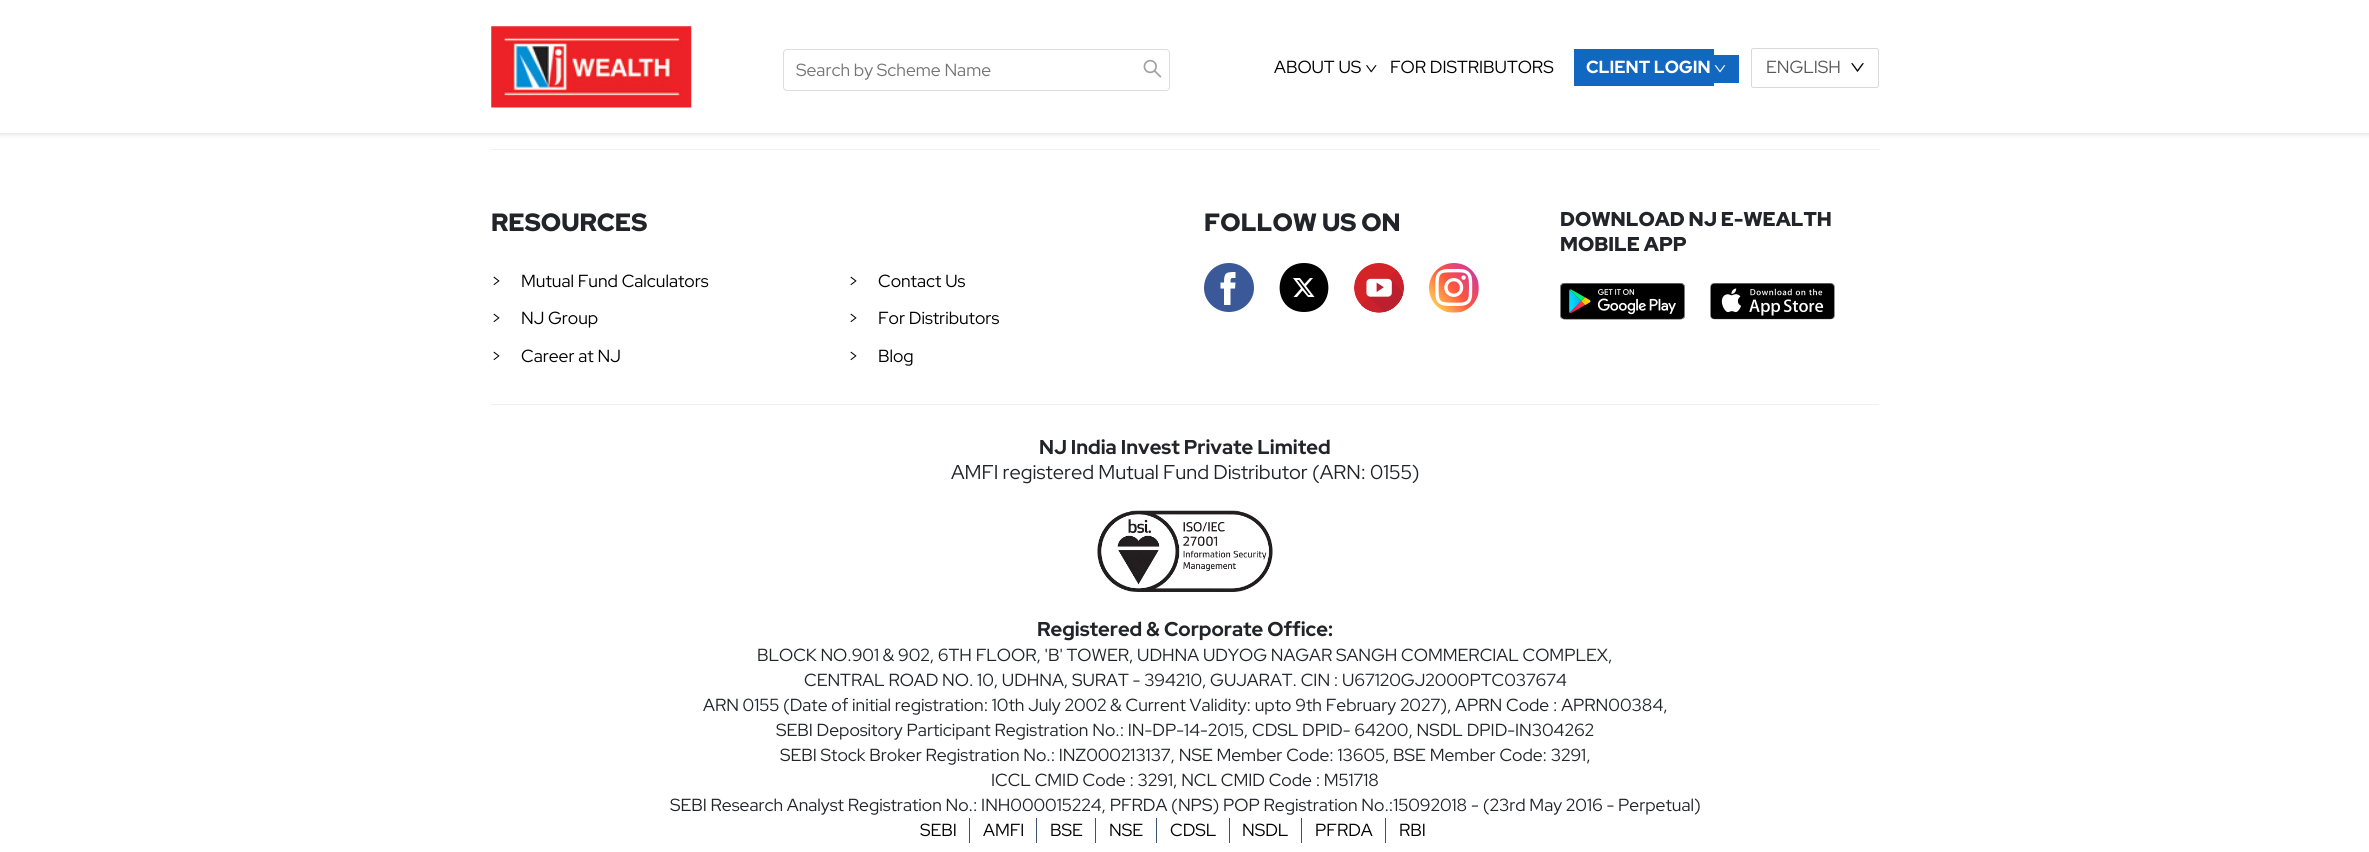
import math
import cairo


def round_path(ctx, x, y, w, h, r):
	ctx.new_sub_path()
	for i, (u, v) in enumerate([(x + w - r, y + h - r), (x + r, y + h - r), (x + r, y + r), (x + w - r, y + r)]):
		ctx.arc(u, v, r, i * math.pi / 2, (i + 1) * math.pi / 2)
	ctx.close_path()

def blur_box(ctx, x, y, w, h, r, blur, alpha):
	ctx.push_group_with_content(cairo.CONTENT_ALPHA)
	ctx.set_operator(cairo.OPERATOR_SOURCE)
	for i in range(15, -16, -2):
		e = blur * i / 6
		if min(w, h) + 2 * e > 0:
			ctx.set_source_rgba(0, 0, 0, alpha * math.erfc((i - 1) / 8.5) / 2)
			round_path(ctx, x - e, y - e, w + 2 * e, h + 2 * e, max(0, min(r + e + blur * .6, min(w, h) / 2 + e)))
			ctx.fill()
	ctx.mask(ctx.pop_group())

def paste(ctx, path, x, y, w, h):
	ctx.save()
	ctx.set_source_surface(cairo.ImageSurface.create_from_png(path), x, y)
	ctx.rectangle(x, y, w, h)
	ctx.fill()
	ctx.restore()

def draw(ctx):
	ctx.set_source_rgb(1, 1, 1)
	ctx.paint()
	ctx.set_source_rgb(0.871, 0.871, 0.871)
	blur_box(ctx, 0, 1, 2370, 133, 0, 2.5, 1)
	ctx.set_source_rgb(1, 1, 1)
	ctx.rectangle(0, 0, 2369, 133)
	ctx.fill()
	paste(ctx, 'media/1.png', 491, 26, 201, 82)
	round_path(ctx, 783.5, 49.5, 386, 41, 3.5)
	ctx.set_source_rgb(0.867, 0.867, 0.867)
	ctx.set_line_width(1)
	ctx.stroke()
	ctx.select_font_face('Red Hat Display')
	ctx.set_font_size(17.5)
	ctx.set_source_rgb(0.459, 0.459, 0.459)
	ctx.move_to(796, 76)
	ctx.show_text('Search by Scheme Name')
	paste(ctx, 'media/2.png', 1143, 59, 19, 19)
	ctx.set_source_rgb(0, 0, 0)
	ctx.move_to(1274, 73)
	ctx.show_text('ABOUT US')
	paste(ctx, 'media/3.png', 1366, 65, 11, 8)
	ctx.move_to(1390, 73)
	ctx.show_text('FOR DISTRIBUTORS')
	ctx.set_source_rgb(0.071, 0.408, 0.753)
	ctx.rectangle(1574, 49, 140, 37)
	ctx.fill()
	ctx.rectangle(1714, 55, 25, 28)
	ctx.fill()
	ctx.select_font_face('Red Hat Display', cairo.FONT_SLANT_NORMAL, cairo.FONT_WEIGHT_BOLD)
	ctx.set_source_rgb(1, 1, 1)
	ctx.move_to(1586, 73)
	ctx.show_text('CLIENT LOGIN')
	paste(ctx, 'media/4.png', 1714, 65, 12, 8)
	round_path(ctx, 1751.5, 48.5, 127, 39, 2)
	ctx.set_source_rgb(0.851, 0.851, 0.851)
	ctx.stroke()
	ctx.select_font_face('Red Hat Display')
	ctx.set_source_rgb(0.349, 0.349, 0.349)
	ctx.move_to(1766, 73)
	ctx.show_text('ENGLISH')
	paste(ctx, 'media/5.png', 1851, 63, 13, 9)
	ctx.set_source_rgb(0.941, 0.941, 0.941)
	ctx.rectangle(491, 149, 1388, 1)
	ctx.fill()
	ctx.select_font_face('Red Hat Display Black')
	ctx.set_font_size(25)
	ctx.set_source_rgb(0.129, 0.145, 0.161)
	ctx.move_to(491, 231)
	ctx.show_text('RESOURCES')
	ctx.select_font_face('Red Hat Display')
	ctx.set_font_size(17.5)
	ctx.set_source_rgb(0, 0, 0)
	for x, y, s in [
		(491, 287, '>'),
		(521, 287, 'Mutual Fund Calculators'),
		(491, 324, '>'),
		(521, 324, 'NJ Group'),
		(491, 362, '>'),
		(521, 362, 'Career at NJ'),
		(848, 287, '>'),
		(878, 287, 'Contact Us'),
		(848, 324, '>'),
		(878, 324, 'For Distributors'),
		(848, 362, '>'),
		(878, 362, 'Blog'),
	]:
		ctx.move_to(x, y)
		ctx.show_text(s)
	ctx.select_font_face('Red Hat Display Black')
	ctx.set_font_size(25)
	ctx.set_source_rgb(0.129, 0.145, 0.161)
	ctx.move_to(1204, 231)
	ctx.show_text('FOLLOW US ON')
	ctx.set_source_rgb(0.231, 0.349, 0.596)
	ctx.new_path()
	ctx.move_to(1229, 263)
	ctx.curve_to(1243, 263, 1254, 274, 1254, 288)
	ctx.curve_to(1254, 301, 1243, 312, 1229, 312)
	ctx.curve_to(1215, 312, 1204, 301, 1204, 288)
	ctx.curve_to(1204, 274, 1215, 263, 1229, 263)
	ctx.close_path()
	ctx.fill()
	ctx.set_source_rgb(1, 1, 1)
	ctx.new_path()
	ctx.move_to(1235, 288.5)
	ctx.line_to(1230.5, 288.5)
	ctx.line_to(1230.5, 305)
	ctx.line_to(1224, 305)
	ctx.line_to(1224, 288.5)
	ctx.line_to(1220.5, 288.5)
	ctx.line_to(1220.5, 282.5)
	ctx.line_to(1224, 282.5)
	ctx.curve_to(1224, 272.5, 1226, 272, 1235.5, 272)
	ctx.line_to(1235.5, 278)
	ctx.curve_to(1230.5, 278, 1230.5, 277.5, 1230.5, 282.5)
	ctx.line_to(1235.5, 282.5)
	ctx.close_path()
	ctx.fill()
	ctx.set_source_rgb(0, 0, 0)
	ctx.new_path()
	ctx.move_to(1304, 263)
	ctx.curve_to(1336, 263, 1337, 312, 1304, 312)
	ctx.curve_to(1271, 312, 1272, 263, 1304, 263)
	ctx.close_path()
	ctx.fill()
	ctx.set_source_rgb(1, 1, 1)
	ctx.new_path()
	ctx.move_to(1310, 278)
	ctx.line_to(1313, 278)
	ctx.line_to(1306, 286)
	ctx.line_to(1314.5, 297)
	ctx.line_to(1308, 297)
	ctx.line_to(1302.5, 290.5)
	ctx.line_to(1297, 297)
	ctx.line_to(1293.5, 297)
	ctx.line_to(1301, 288.5)
	ctx.line_to(1293, 278)
	ctx.line_to(1300, 278)
	ctx.line_to(1304.5, 284)
	ctx.close_path()
	ctx.move_to(1308.5, 295)
	ctx.line_to(1310.5, 295)
	ctx.line_to(1299, 280)
	ctx.line_to(1297, 280)
	ctx.close_path()
	ctx.fill()
	paste(ctx, 'media/6.png', 1354, 263, 50, 50)
	paste(ctx, 'media/7.png', 1429, 263, 50, 50)
	ctx.set_font_size(20)
	ctx.set_source_rgb(0.129, 0.145, 0.161)
	ctx.move_to(1560, 226)
	ctx.show_text('DOWNLOAD NJ E-WEALTH')
	ctx.move_to(1560, 251)
	ctx.show_text('MOBILE APP')
	paste(ctx, 'media/8.png', 1560, 283, 125, 37)
	paste(ctx, 'media/9.png', 1710, 283, 125, 37)
	ctx.set_source_rgb(0.941, 0.941, 0.941)
	ctx.rectangle(491, 404, 1388, 1)
	ctx.fill()
	ctx.select_font_face('Red Hat Display', cairo.FONT_SLANT_NORMAL, cairo.FONT_WEIGHT_BOLD)
	ctx.set_source_rgb(0.129, 0.145, 0.161)
	ctx.move_to(1039, 454)
	ctx.show_text('NJ India Invest Private Limited')
	ctx.select_font_face('Red Hat Display')
	ctx.move_to(951, 479)
	ctx.show_text('AMFI registered Mutual Fund Distributor (ARN: 0155)')
	paste(ctx, 'media/10.png', 1097, 510, 176, 82)
	ctx.select_font_face('Red Hat Display', cairo.FONT_SLANT_NORMAL, cairo.FONT_WEIGHT_BOLD)
	ctx.move_to(1037, 636)
	ctx.show_text('Registered & Corporate Office:')
	ctx.select_font_face('Red Hat Display')
	ctx.set_font_size(17.5)
	for x, y, s in [
		(757, 661, 'BLOCK NO.901 & 902, 6TH FLOOR, \'B\' TOWER, UDHNA UDYOG NAGAR SANGH COMMERCIAL COMPLEX,'),
		(804, 686, 'CENTRAL ROAD NO. 10, UDHNA, SURAT - 394210, GUJARAT. CIN : U67120GJ2000PTC037674'),
		(703, 711, 'ARN 0155 (Date of initial registration: 10th July 2002 & Current Validity: upto 9th February 2027), APRN Code : APRN00384,'),
		(776, 736, 'SEBI Depository Participant Registration No.: IN-DP-14-2015, CDSL DPID- 64200, NSDL DPID-IN304262'),
		(780, 761, 'SEBI Stock Broker Registration No.: INZ000213137, NSE Member Code: 13605, BSE Member Code: 3291,'),
		(991, 786, 'ICCL CMID Code : 3291, NCL CMID Code : M51718'),
		(670, 811, 'SEBI Research Analyst Registration No.: INH000015224, PFRDA (NPS) POP Registration No.:15092018 - (23rd May 2016 - Perpetual)'),
	]:
		ctx.move_to(x, y)
		ctx.show_text(s)
	ctx.set_source_rgb(0.231, 0.325, 0.42)
	ctx.rectangle(969, 818, 1, 25)
	ctx.fill()
	ctx.set_source_rgb(0, 0, 0)
	ctx.move_to(920, 836)
	ctx.show_text('SEBI')
	ctx.set_source_rgb(0.231, 0.325, 0.42)
	ctx.rectangle(1036, 818, 1, 25)
	ctx.fill()
	ctx.set_source_rgb(0, 0, 0)
	ctx.move_to(983, 836)
	ctx.show_text('AMFI')
	ctx.set_source_rgb(0.231, 0.325, 0.42)
	ctx.rectangle(1095, 818, 1, 25)
	ctx.fill()
	ctx.set_source_rgb(0, 0, 0)
	ctx.move_to(1050, 836)
	ctx.show_text('BSE')
	ctx.set_source_rgb(0.231, 0.325, 0.42)
	ctx.rectangle(1156, 818, 1, 25)
	ctx.fill()
	ctx.set_source_rgb(0, 0, 0)
	ctx.move_to(1109, 836)
	ctx.show_text('NSE')
	ctx.set_source_rgb(0.231, 0.325, 0.42)
	ctx.rectangle(1229, 818, 1, 25)
	ctx.fill()
	ctx.set_source_rgb(0, 0, 0)
	ctx.move_to(1170, 836)
	ctx.show_text('CDSL')
	ctx.set_source_rgb(0.231, 0.325, 0.42)
	ctx.rectangle(1301, 818, 1, 25)
	ctx.fill()
	ctx.set_source_rgb(0, 0, 0)
	ctx.move_to(1242, 836)
	ctx.show_text('NSDL')
	ctx.set_source_rgb(0.231, 0.325, 0.42)
	ctx.rectangle(1385, 818, 1, 25)
	ctx.fill()
	ctx.set_source_rgb(0, 0, 0)
	ctx.move_to(1315, 836)
	ctx.show_text('PFRDA')
	ctx.move_to(1399, 836)
	ctx.show_text('RBI')


surface = cairo.ImageSurface(cairo.FORMAT_RGB24, 2369, 852)
ctx = cairo.Context(surface)
options = cairo.FontOptions()
options.set_hint_metrics(cairo.HINT_METRICS_OFF)
options.set_hint_style(cairo.HINT_STYLE_NONE)
ctx.set_font_options(options)
ctx.set_miter_limit(4)
draw(ctx)
surface.write_to_png('image.png')
